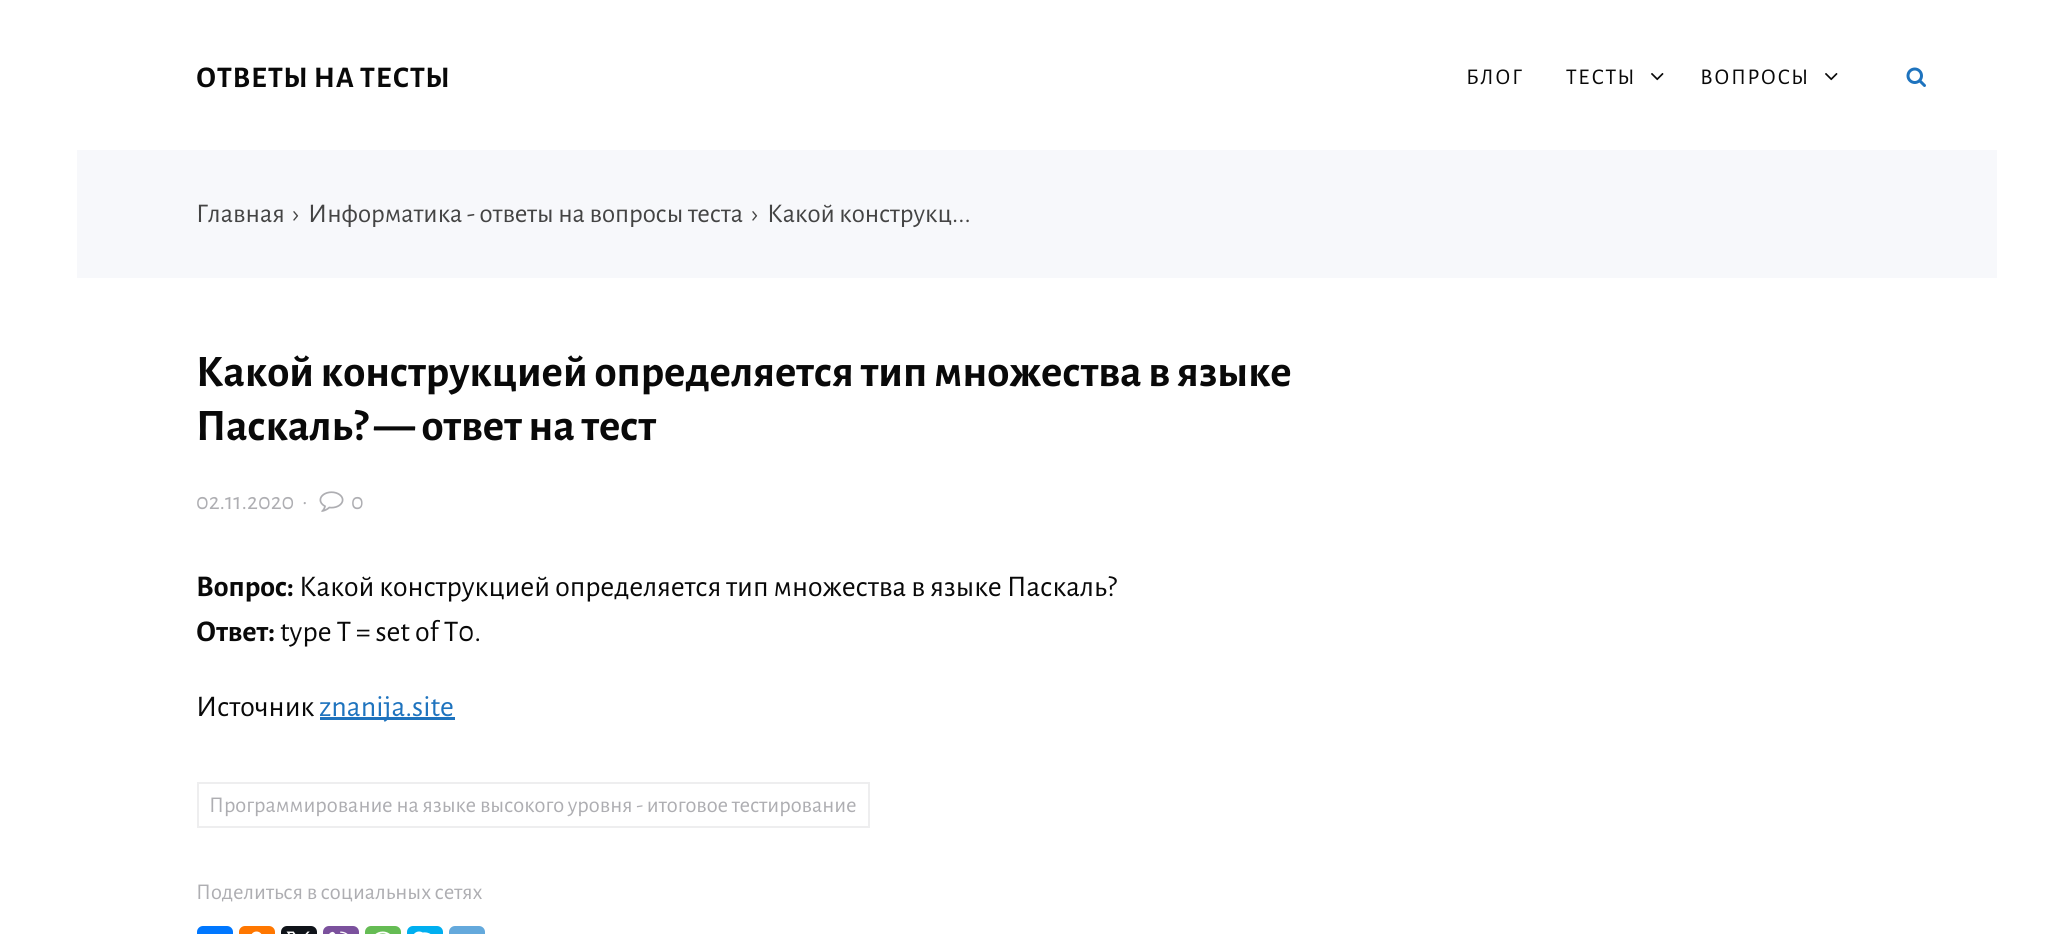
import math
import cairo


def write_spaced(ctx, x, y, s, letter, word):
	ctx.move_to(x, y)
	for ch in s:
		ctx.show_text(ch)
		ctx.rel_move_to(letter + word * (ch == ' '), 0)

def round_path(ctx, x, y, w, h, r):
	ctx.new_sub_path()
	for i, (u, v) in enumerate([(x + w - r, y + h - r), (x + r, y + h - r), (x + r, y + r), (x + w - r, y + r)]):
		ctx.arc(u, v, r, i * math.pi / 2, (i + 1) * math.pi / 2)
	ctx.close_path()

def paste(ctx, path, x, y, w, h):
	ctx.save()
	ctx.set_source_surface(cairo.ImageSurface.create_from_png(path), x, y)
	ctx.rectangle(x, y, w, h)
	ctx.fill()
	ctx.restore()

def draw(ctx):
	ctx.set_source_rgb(1, 1, 1)
	ctx.paint()
	ctx.select_font_face('Alegreya Sans', cairo.FONT_SLANT_NORMAL, cairo.FONT_WEIGHT_BOLD)
	ctx.set_font_size(30)
	ctx.set_source_rgb(0.039, 0.039, 0.039)
	write_spaced(ctx, 196, 87, 'ОТВЕТЫ НА ТЕСТЫ', 0.75, 0)
	ctx.select_font_face('Alegreya Sans')
	ctx.set_font_size(22.5)
	write_spaced(ctx, 1466, 84, 'БЛОГ', 1.5, 0)
	write_spaced(ctx, 1566, 84, 'ТЕСТЫ', 1.5, 0)
	paste(ctx, 'media/1.png', 1651, 73, 13, 8)
	write_spaced(ctx, 1700, 84, 'ВОПРОСЫ', 1.5, 0)
	paste(ctx, 'media/1.png', 1825, 73, 13, 8)
	paste(ctx, 'media/2.png', 1906, 67, 20, 20)
	ctx.set_source_rgb(0.965, 0.969, 0.984)
	ctx.rectangle(77, 150, 1920, 128)
	ctx.fill()
	ctx.set_font_size(27)
	ctx.set_source_rgb(0.267, 0.267, 0.267)
	for x, y, s in [
		(196, 222, 'Главная'),
		(293, 222, '›'),
		(308, 222, 'Информатика - ответы на вопросы теста'),
		(752, 222, '›'),
		(767, 222, 'Какой конструкц...'),
	]:
		ctx.move_to(x, y)
		ctx.show_text(s)
	ctx.select_font_face('Alegreya Sans', cairo.FONT_SLANT_NORMAL, cairo.FONT_WEIGHT_BOLD)
	ctx.set_font_size(45)
	ctx.set_source_rgb(0.039, 0.039, 0.039)
	ctx.move_to(196, 386)
	ctx.show_text('Какой конструкцией определяется тип множества в языке')
	ctx.move_to(196, 440)
	ctx.show_text('Паскаль? — ответ на тест')
	ctx.select_font_face('Alegreya Sans')
	ctx.set_font_size(24)
	ctx.set_source_rgb(0.682, 0.682, 0.698)
	ctx.move_to(196, 509)
	ctx.show_text('02.11.2020')
	ctx.move_to(302, 509)
	ctx.show_text('·')
	paste(ctx, 'media/3.png', 319, 491, 25, 21)
	ctx.move_to(351, 509)
	ctx.show_text('0')
	ctx.select_font_face('Alegreya Sans', cairo.FONT_SLANT_NORMAL, cairo.FONT_WEIGHT_BOLD)
	ctx.set_font_size(30)
	ctx.set_source_rgb(0.039, 0.039, 0.039)
	ctx.move_to(196, 596)
	ctx.show_text('Вопрос:')
	ctx.select_font_face('Alegreya Sans')
	ctx.move_to(299, 596)
	ctx.show_text('Какой конструкцией определяется тип множества в языке Паскаль?')
	ctx.select_font_face('Alegreya Sans', cairo.FONT_SLANT_NORMAL, cairo.FONT_WEIGHT_BOLD)
	ctx.move_to(196, 641)
	ctx.show_text('Ответ:')
	ctx.select_font_face('Alegreya Sans')
	ctx.move_to(280, 641)
	ctx.show_text('type T = set of T0.')
	ctx.move_to(196, 716)
	ctx.show_text('Источник')
	ctx.set_source_rgb(0.118, 0.451, 0.745)
	ctx.rectangle(320, 717, 135, 3)
	ctx.fill()
	ctx.move_to(319, 716)
	ctx.show_text('znanija.site')
	ctx.rectangle(198, 783, 671, 44)
	ctx.set_source_rgb(0.933, 0.933, 0.937)
	ctx.stroke()
	ctx.set_font_size(22.5)
	ctx.set_source_rgb(0.682, 0.682, 0.698)
	ctx.move_to(209, 812)
	ctx.show_text('Программирование на языке высокого уровня - итоговое тестирование')
	ctx.move_to(196, 899)
	ctx.show_text('Поделиться в социальных сетях')
	ctx.set_source_rgb(0, 0.467, 1)
	round_path(ctx, 197, 926, 36, 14, 6)
	ctx.fill()
	ctx.set_source_rgb(1, 0.467, 0)
	round_path(ctx, 239, 926, 36, 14, 6)
	ctx.fill()
	paste(ctx, 'media/4.png', 251, 931, 11, 3)
	ctx.set_source_rgb(0.059, 0.078, 0.098)
	round_path(ctx, 281, 926, 36, 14, 6)
	ctx.fill()
	paste(ctx, 'media/5.png', 286, 931, 24, 3)
	ctx.set_source_rgb(0.482, 0.318, 0.616)
	round_path(ctx, 323, 926, 36, 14, 6)
	ctx.fill()
	paste(ctx, 'media/6.png', 329, 931, 19, 3)
	ctx.set_source_rgb(0.396, 0.737, 0.329)
	round_path(ctx, 365, 926, 36, 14, 6)
	ctx.fill()
	paste(ctx, 'media/7.png', 375, 931, 15, 3)
	ctx.set_source_rgb(0, 0.686, 0.941)
	round_path(ctx, 407, 926, 36, 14, 6)
	ctx.fill()
	paste(ctx, 'media/8.png', 414, 931, 17, 3)
	ctx.set_source_rgb(0.392, 0.663, 0.863)
	round_path(ctx, 449, 926, 36, 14, 6)
	ctx.fill()


surface = cairo.ImageSurface(cairo.FORMAT_RGB24, 2071, 934)
ctx = cairo.Context(surface)
options = cairo.FontOptions()
options.set_hint_metrics(cairo.HINT_METRICS_OFF)
options.set_hint_style(cairo.HINT_STYLE_NONE)
ctx.set_font_options(options)
ctx.set_miter_limit(4)
draw(ctx)
surface.write_to_png('image.png')
